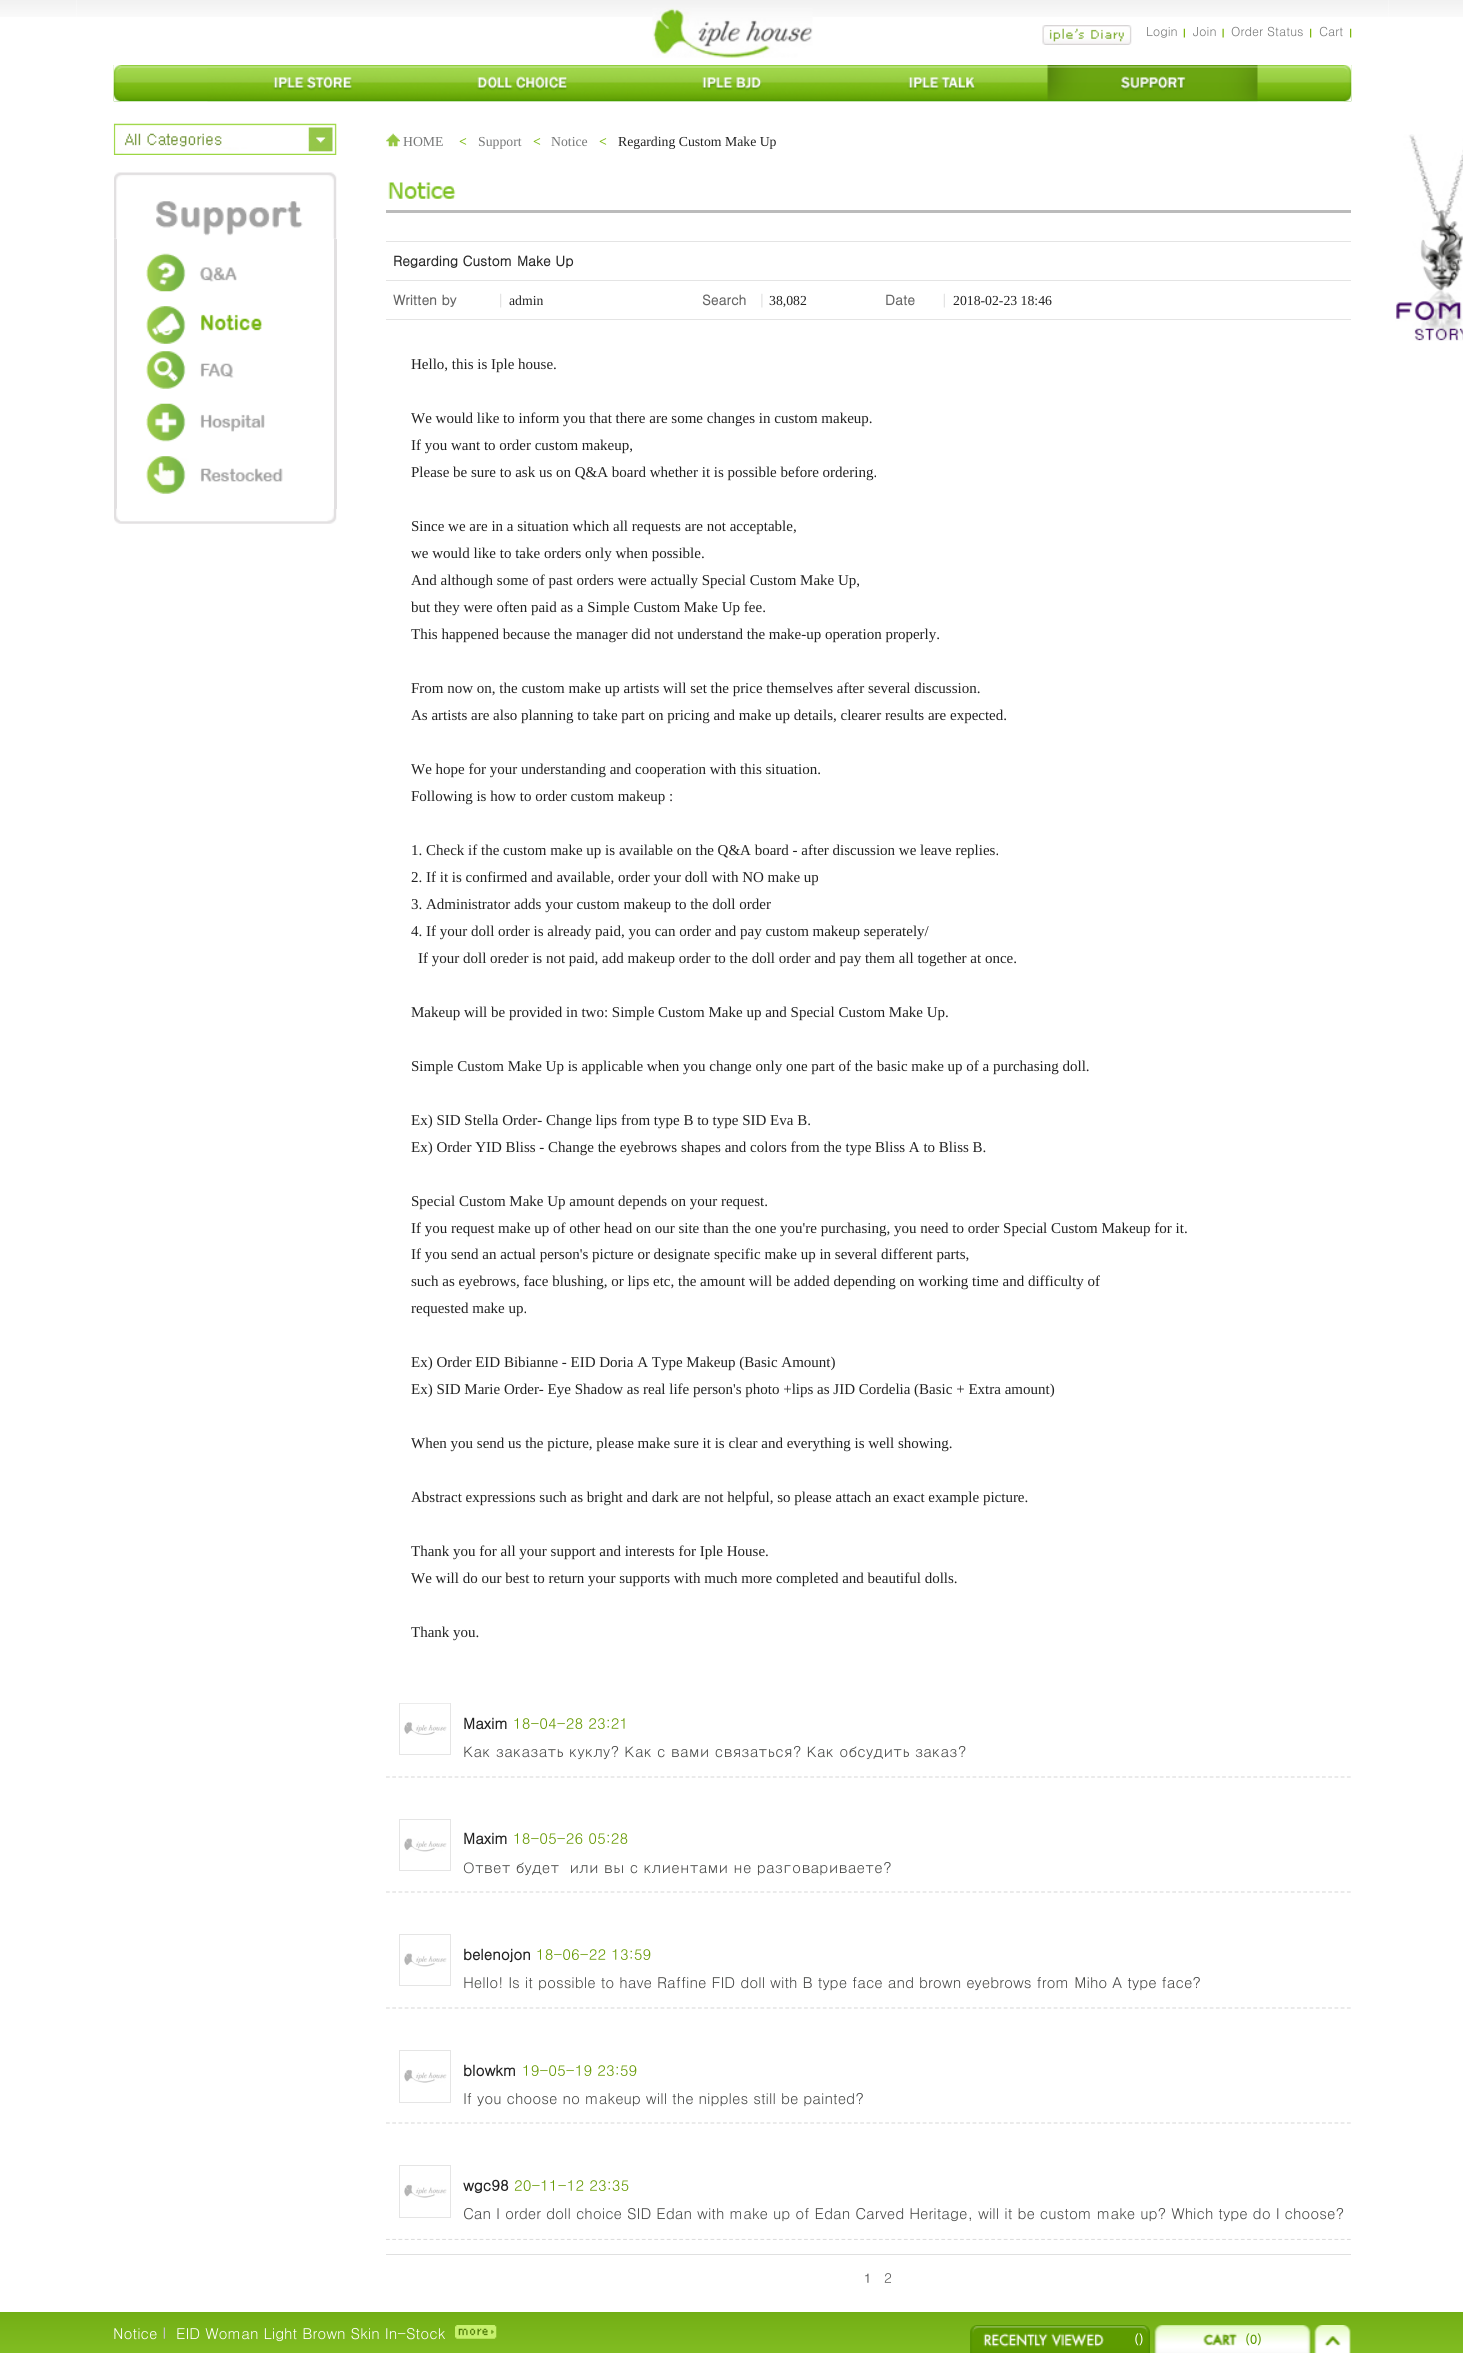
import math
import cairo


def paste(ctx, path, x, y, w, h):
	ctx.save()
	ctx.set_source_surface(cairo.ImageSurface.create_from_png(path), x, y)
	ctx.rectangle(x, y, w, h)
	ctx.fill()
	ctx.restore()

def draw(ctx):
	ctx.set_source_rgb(1, 1, 1)
	ctx.paint()
	paste(ctx, 'media/1.png', 0, 0, 1463, 17)
	ctx.set_source_rgb(1, 1, 1)
	ctx.rectangle(76, 0, 1313, 17)
	ctx.fill()
	paste(ctx, 'media/2.png', 76, 0, 1313, 17)
	paste(ctx, 'media/3.png', 652, 8, 161, 50)
	paste(ctx, 'media/4.png', 1042, 25, 90, 20)
	paste(ctx, 'media/5.png', 1183, 28, 2, 10)
	ctx.select_font_face('Dotum')
	ctx.set_font_size(12.5)
	ctx.set_source_rgb(0.467, 0.471, 0.471)
	ctx.move_to(1146, 36)
	ctx.show_text('Login')
	paste(ctx, 'media/6.png', 1222, 28, 2, 10)
	ctx.move_to(1193, 36)
	ctx.show_text('Join')
	paste(ctx, 'media/7.png', 1310, 28, 2, 10)
	ctx.move_to(1231, 36)
	ctx.show_text('Order Status')
	paste(ctx, 'media/7.png', 1350, 28, 2, 10)
	ctx.move_to(1319, 36)
	ctx.show_text('Cart')
	paste(ctx, 'media/8.png', 113, 65, 1239, 37)
	paste(ctx, 'media/9.png', 113, 65, 9, 37)
	paste(ctx, 'media/10.png', 207, 68, 211, 34)
	paste(ctx, 'media/11.png', 417, 68, 211, 34)
	paste(ctx, 'media/12.png', 627, 68, 211, 34)
	paste(ctx, 'media/13.png', 837, 68, 211, 34)
	paste(ctx, 'media/14.png', 1047, 65, 211, 37)
	paste(ctx, 'media/15.png', 1343, 65, 9, 37)
	paste(ctx, 'media/16.png', 1395, 134, 68, 207)
	paste(ctx, 'media/17.png', 113, 123, 224, 32)
	paste(ctx, 'media/18.png', 386, 133, 14, 14)
	ctx.select_font_face('Liberation Serif')
	ctx.set_font_size(13.75)
	ctx.move_to(403, 146)
	ctx.show_text('HOME')
	ctx.select_font_face('Liberation Serif', cairo.FONT_SLANT_NORMAL, cairo.FONT_WEIGHT_BOLD)
	ctx.set_source_rgb(0.478, 0.725, 0.075)
	ctx.move_to(459, 146)
	ctx.show_text('<')
	ctx.select_font_face('Liberation Serif')
	ctx.set_source_rgb(0.467, 0.471, 0.471)
	ctx.move_to(478, 146)
	ctx.show_text('Support')
	ctx.select_font_face('Liberation Serif', cairo.FONT_SLANT_NORMAL, cairo.FONT_WEIGHT_BOLD)
	ctx.set_source_rgb(0.478, 0.725, 0.075)
	ctx.move_to(533, 146)
	ctx.show_text('<')
	ctx.select_font_face('Liberation Serif')
	ctx.set_source_rgb(0.467, 0.471, 0.471)
	ctx.move_to(551, 146)
	ctx.show_text('Notice')
	ctx.select_font_face('Liberation Serif', cairo.FONT_SLANT_NORMAL, cairo.FONT_WEIGHT_BOLD)
	ctx.set_source_rgb(0.478, 0.725, 0.075)
	ctx.move_to(599, 146)
	ctx.show_text('<')
	ctx.select_font_face('Liberation Serif')
	ctx.set_source_rgb(0.133, 0.133, 0.133)
	ctx.move_to(618, 146)
	ctx.show_text('Regarding Custom Make Up')
	paste(ctx, 'media/19.png', 114, 172, 223, 67)
	ctx.set_source_rgb(0.886, 0.878, 0.882)
	ctx.rectangle(334, 239, 3, 270)
	ctx.fill()
	ctx.rectangle(114, 239, 3, 270)
	ctx.fill()
	paste(ctx, 'media/20.png', 146, 253, 91, 39)
	paste(ctx, 'media/21.png', 146, 306, 117, 38)
	paste(ctx, 'media/22.png', 146, 351, 88, 38)
	paste(ctx, 'media/23.png', 146, 403, 119, 39)
	paste(ctx, 'media/24.png', 146, 456, 137, 38)
	paste(ctx, 'media/25.png', 114, 508, 223, 16)
	ctx.set_source_rgb(0.733, 0.733, 0.733)
	ctx.rectangle(386, 210, 965, 3)
	ctx.fill()
	paste(ctx, 'media/26.png', 388, 182, 68, 17)
	ctx.set_source_rgb(0.894, 0.894, 0.894)
	ctx.rectangle(386, 241, 965, 1)
	ctx.fill()
	ctx.rectangle(386, 280, 965, 1)
	ctx.fill()
	ctx.select_font_face('Dotum', cairo.FONT_SLANT_NORMAL, cairo.FONT_WEIGHT_BOLD)
	ctx.set_source_rgb(0.165, 0.165, 0.165)
	ctx.move_to(393, 266)
	ctx.show_text('Regarding Custom Make Up')
	paste(ctx, 'media/27.png', 500, 293, 2, 15)
	ctx.set_source_rgb(0.894, 0.894, 0.894)
	ctx.rectangle(386, 319, 965, 1)
	ctx.fill()
	ctx.set_source_rgb(0.4, 0.4, 0.4)
	ctx.move_to(393, 305)
	ctx.show_text('Written by')
	ctx.select_font_face('Liberation Serif')
	ctx.set_source_rgb(0.133, 0.133, 0.133)
	ctx.move_to(509, 305)
	ctx.show_text('admin')
	paste(ctx, 'media/28.png', 761, 293, 2, 15)
	ctx.select_font_face('Dotum', cairo.FONT_SLANT_NORMAL, cairo.FONT_WEIGHT_BOLD)
	ctx.set_source_rgb(0.4, 0.4, 0.4)
	ctx.move_to(702, 305)
	ctx.show_text('Search')
	ctx.select_font_face('Liberation Serif')
	ctx.set_source_rgb(0.133, 0.133, 0.133)
	ctx.move_to(769, 305)
	ctx.show_text('38,082')
	paste(ctx, 'media/29.png', 943, 293, 2, 15)
	ctx.select_font_face('Dotum', cairo.FONT_SLANT_NORMAL, cairo.FONT_WEIGHT_BOLD)
	ctx.set_source_rgb(0.4, 0.4, 0.4)
	ctx.move_to(885, 305)
	ctx.show_text('Date')
	ctx.select_font_face('Liberation Serif')
	ctx.set_source_rgb(0.133, 0.133, 0.133)
	ctx.move_to(953, 305)
	ctx.show_text('2018-02-23 18:46')
	ctx.set_font_size(15)
	for x, y, s in [
		(411, 369, 'Hello, this is Iple house.'),
		(411, 423, 'We would like to inform you that there are some changes in custom makeup.'),
		(411, 450, 'If you want to order custom makeup,'),
		(411, 477, 'Please be sure to ask us on Q&A board whether it is possible before ordering.'),
		(411, 531, 'Since we are in a situation which all requests are not acceptable,'),
		(411, 558, 'we would like to take orders only when possible.'),
		(411, 585, 'And although some of past orders were actually Special Custom Make Up,'),
		(411, 612, 'but they were often paid as a Simple Custom Make Up fee.'),
		(411, 639, 'This happened because the manager did not understand the make-up operation properly.'),
		(411, 693, 'From now on, the custom make up artists will set the price themselves after several discussion.'),
		(411, 720, 'As artists are also planning to take part on pricing and make up details, clearer results are expected.'),
		(411, 774, 'We hope for your understanding and cooperation with this situation.'),
		(411, 801, 'Following is how to order custom makeup :'),
		(411, 855, '1. Check if the custom make up is available on the Q&A board - after discussion we leave replies.'),
		(411, 882, '2. If it is confirmed and available, order your doll with NO make up'),
		(411, 909, '3. Administrator adds your custom makeup to the doll order'),
		(411, 936, '4. If your doll order is already paid, you can order and pay custom makeup seperately/'),
		(418, 963, 'If your doll oreder is not paid, add makeup order to the doll order and pay them all together at once.'),
		(411, 1017, 'Makeup will be provided in two: Simple Custom Make up and Special Custom Make Up.'),
		(411, 1071, 'Simple Custom Make Up is applicable when you change only one part of the basic make up of a purchasing doll.'),
		(411, 1125, 'Ex) SID Stella Order- Change lips from type B to type SID Eva B.'),
		(411, 1152, 'Ex) Order YID Bliss - Change the eyebrows shapes and colors from the type Bliss A to Bliss B.'),
		(411, 1206, 'Special Custom Make Up amount depends on your request.'),
		(411, 1233, 'If you request make up of other head on our site than the one you\'re purchasing, you need to order Special Custom Makeup for it.'),
		(411, 1259, 'If you send an actual person\'s picture or designate specific make up in several different parts,'),
		(411, 1286, 'such as eyebrows, face blushing, or lips etc, the amount will be added depending on working time and difficulty of'),
		(411, 1313, 'requested make up.'),
		(411, 1367, 'Ex) Order EID Bibianne - EID Doria A Type Makeup (Basic Amount)'),
		(411, 1394, 'Ex) SID Marie Order- Eye Shadow as real life person\'s photo +lips as JID Cordelia (Basic + Extra amount)'),
		(411, 1448, 'When you send us the picture, please make sure it is clear and everything is well showing.'),
		(411, 1502, 'Abstract expressions such as bright and dark are not helpful, so please attach an exact example picture.'),
		(411, 1556, 'Thank you for all your support and interests for Iple House.'),
		(411, 1583, 'We will do our best to return your supports with much more completed and beautiful dolls.'),
		(411, 1637, 'Thank you.'),
	]:
		ctx.move_to(x, y)
		ctx.show_text(s)
	ctx.new_path()
	ctx.move_to(386, 1777)
	ctx.line_to(1351, 1777)
	ctx.set_source_rgb(0.871, 0.871, 0.871)
	ctx.set_line_width(1.2)
	ctx.set_dash([3.75, 2.49])
	ctx.stroke()
	ctx.rectangle(399.5, 1703.5, 51, 51)
	ctx.set_source_rgb(0.898, 0.898, 0.898)
	ctx.set_line_width(1)
	ctx.set_dash([])
	ctx.stroke()
	paste(ctx, 'media/30.png', 400, 1703, 50, 32)
	ctx.select_font_face('Dotum', cairo.FONT_SLANT_NORMAL, cairo.FONT_WEIGHT_BOLD)
	ctx.set_source_rgb(0.133, 0.133, 0.133)
	ctx.move_to(463, 1729)
	ctx.show_text('Maxim')
	ctx.select_font_face('Dotum')
	ctx.set_source_rgb(0.4, 0.6, 0.008)
	ctx.move_to(513, 1729)
	ctx.show_text('18-04-28 23:21')
	ctx.set_source_rgb(0.282, 0.286, 0.278)
	ctx.move_to(463, 1757)
	ctx.show_text('Как заказать куклу? Как с вами связаться? Как обсудить заказ?')
	ctx.new_path()
	ctx.move_to(386, 1892)
	ctx.line_to(1351, 1892)
	ctx.set_source_rgb(0.871, 0.871, 0.871)
	ctx.set_line_width(1.2)
	ctx.set_dash([3.75, 2.49])
	ctx.stroke()
	ctx.rectangle(399.5, 1819.5, 51, 51)
	ctx.set_source_rgb(0.898, 0.898, 0.898)
	ctx.set_line_width(1)
	ctx.set_dash([])
	ctx.stroke()
	paste(ctx, 'media/31.png', 404, 1838, 43, 14)
	ctx.select_font_face('Dotum', cairo.FONT_SLANT_NORMAL, cairo.FONT_WEIGHT_BOLD)
	ctx.set_source_rgb(0.133, 0.133, 0.133)
	ctx.move_to(463, 1844)
	ctx.show_text('Maxim')
	ctx.select_font_face('Dotum')
	ctx.set_source_rgb(0.4, 0.6, 0.008)
	ctx.move_to(513, 1844)
	ctx.show_text('18-05-26 05:28')
	ctx.set_source_rgb(0.282, 0.286, 0.278)
	ctx.move_to(463, 1873)
	ctx.show_text('Ответ будет  или вы с клиентами не разговариваете?')
	ctx.new_path()
	ctx.move_to(386, 2008)
	ctx.line_to(1351, 2008)
	ctx.set_source_rgb(0.871, 0.871, 0.871)
	ctx.set_line_width(1.2)
	ctx.set_dash([3.75, 2.49])
	ctx.stroke()
	ctx.rectangle(399.5, 1934.5, 51, 51)
	ctx.set_source_rgb(0.898, 0.898, 0.898)
	ctx.set_line_width(1)
	ctx.set_dash([])
	ctx.stroke()
	paste(ctx, 'media/32.png', 404, 1953, 43, 14)
	ctx.select_font_face('Dotum', cairo.FONT_SLANT_NORMAL, cairo.FONT_WEIGHT_BOLD)
	ctx.set_source_rgb(0.133, 0.133, 0.133)
	ctx.move_to(463, 1960)
	ctx.show_text('belenojon')
	ctx.select_font_face('Dotum')
	ctx.set_source_rgb(0.4, 0.6, 0.008)
	ctx.move_to(536, 1960)
	ctx.show_text('18-06-22 13:59')
	ctx.set_source_rgb(0.282, 0.286, 0.278)
	ctx.move_to(463, 1988)
	ctx.show_text('Hello! Is it possible to have Raffine FID doll with B type face and brown eyebrows from Miho A type face?')
	ctx.new_path()
	ctx.move_to(386, 2123)
	ctx.line_to(1351, 2123)
	ctx.set_source_rgb(0.871, 0.871, 0.871)
	ctx.set_line_width(1.2)
	ctx.set_dash([3.75, 2.49])
	ctx.stroke()
	ctx.rectangle(399.5, 2050.5, 51, 52)
	ctx.set_source_rgb(0.898, 0.898, 0.898)
	ctx.set_line_width(1)
	ctx.set_dash([])
	ctx.stroke()
	paste(ctx, 'media/33.png', 404, 2069, 43, 14)
	ctx.select_font_face('Dotum', cairo.FONT_SLANT_NORMAL, cairo.FONT_WEIGHT_BOLD)
	ctx.set_source_rgb(0.133, 0.133, 0.133)
	ctx.move_to(463, 2076)
	ctx.show_text('blowkm')
	ctx.select_font_face('Dotum')
	ctx.set_source_rgb(0.4, 0.6, 0.008)
	ctx.move_to(522, 2076)
	ctx.show_text('19-05-19 23:59')
	ctx.set_source_rgb(0.282, 0.286, 0.278)
	ctx.move_to(463, 2104)
	ctx.show_text('If you choose no makeup will the nipples still be painted?')
	ctx.save()
	ctx.rectangle(386, 2149, 965, 91)
	ctx.clip()
	ctx.new_path()
	ctx.move_to(386, 2239.5)
	ctx.line_to(1351, 2239.5)
	ctx.set_source_rgb(0.871, 0.871, 0.871)
	ctx.set_line_width(1.2)
	ctx.set_dash([3.75, 2.49])
	ctx.stroke()
	ctx.restore()
	ctx.rectangle(399.5, 2165.5, 51, 52)
	ctx.set_source_rgb(0.898, 0.898, 0.898)
	ctx.stroke()
	paste(ctx, 'media/33.png', 404, 2184, 43, 14)
	ctx.select_font_face('Dotum', cairo.FONT_SLANT_NORMAL, cairo.FONT_WEIGHT_BOLD)
	ctx.set_source_rgb(0.133, 0.133, 0.133)
	ctx.move_to(463, 2191)
	ctx.show_text('wgc98')
	ctx.select_font_face('Dotum')
	ctx.set_source_rgb(0.4, 0.6, 0.008)
	ctx.move_to(514, 2191)
	ctx.show_text('20-11-12 23:35')
	ctx.set_source_rgb(0.282, 0.286, 0.278)
	ctx.move_to(463, 2219)
	ctx.show_text('Can I order doll choice SID Edan with make up of Edan Carved Heritage, will it be custom make up? Which type do I choose?')
	ctx.set_source_rgb(0.878, 0.878, 0.878)
	ctx.rectangle(386, 2254, 965, 1)
	ctx.fill()
	ctx.select_font_face('Dotum', cairo.FONT_SLANT_NORMAL, cairo.FONT_WEIGHT_BOLD)
	ctx.set_font_size(12.5)
	ctx.set_source_rgb(0.4, 0.4, 0.4)
	ctx.move_to(864, 2283)
	ctx.show_text('1')
	ctx.select_font_face('Dotum')
	ctx.set_font_size(13.75)
	ctx.set_source_rgb(0.349, 0.349, 0.345)
	ctx.move_to(884, 2283)
	ctx.show_text('2')
	paste(ctx, 'media/34.png', 0, 2312, 1463, 41)
	paste(ctx, 'media/35.png', 163, 2327, 2, 12)
	ctx.set_font_size(15)
	ctx.set_source_rgb(1, 1, 1)
	ctx.move_to(113, 2339)
	ctx.show_text('Notice')
	ctx.move_to(176, 2339)
	ctx.show_text('EID Woman Light Brown Skin In-Stock')
	paste(ctx, 'media/36.png', 455, 2325, 42, 14)
	paste(ctx, 'media/37.png', 970, 2325, 180, 28)
	ctx.select_font_face('Dotum', cairo.FONT_SLANT_NORMAL, cairo.FONT_WEIGHT_BOLD)
	ctx.set_font_size(12.5)
	ctx.move_to(1134, 2344)
	ctx.show_text('()')
	paste(ctx, 'media/38.png', 1153, 2325, 159, 28)
	ctx.set_source_rgb(0.361, 0.604, 0)
	ctx.move_to(1245, 2344)
	ctx.show_text('(0)')
	paste(ctx, 'media/39.png', 1314, 2325, 37, 28)


surface = cairo.ImageSurface(cairo.FORMAT_RGB24, 1463, 2353)
ctx = cairo.Context(surface)
options = cairo.FontOptions()
options.set_hint_metrics(cairo.HINT_METRICS_OFF)
options.set_hint_style(cairo.HINT_STYLE_NONE)
ctx.set_font_options(options)
ctx.set_miter_limit(4)
draw(ctx)
surface.write_to_png('image.png')
